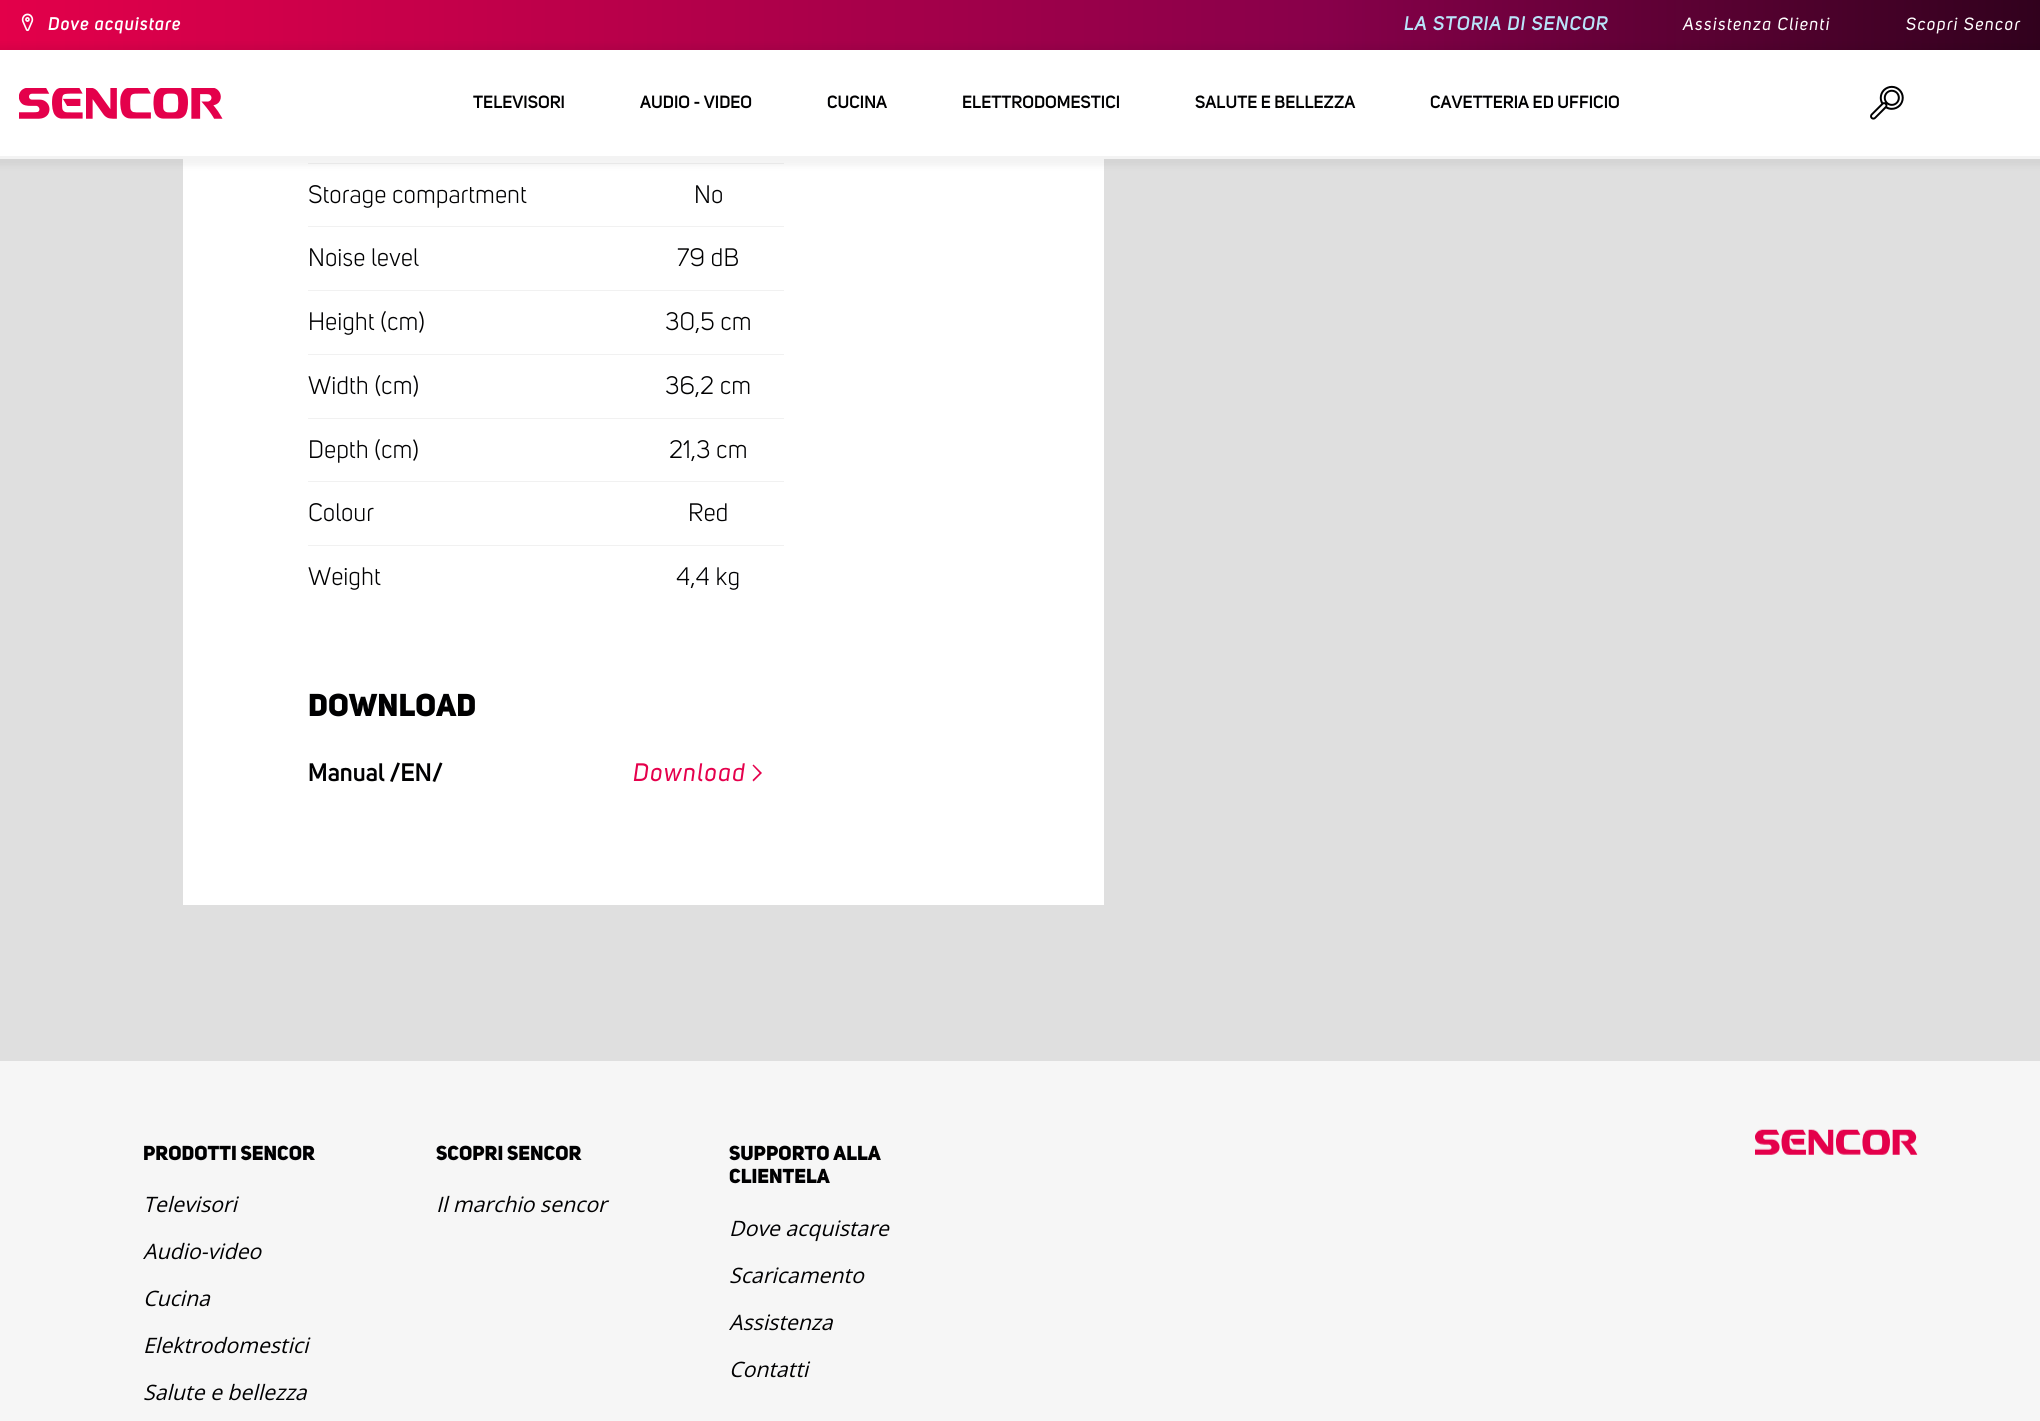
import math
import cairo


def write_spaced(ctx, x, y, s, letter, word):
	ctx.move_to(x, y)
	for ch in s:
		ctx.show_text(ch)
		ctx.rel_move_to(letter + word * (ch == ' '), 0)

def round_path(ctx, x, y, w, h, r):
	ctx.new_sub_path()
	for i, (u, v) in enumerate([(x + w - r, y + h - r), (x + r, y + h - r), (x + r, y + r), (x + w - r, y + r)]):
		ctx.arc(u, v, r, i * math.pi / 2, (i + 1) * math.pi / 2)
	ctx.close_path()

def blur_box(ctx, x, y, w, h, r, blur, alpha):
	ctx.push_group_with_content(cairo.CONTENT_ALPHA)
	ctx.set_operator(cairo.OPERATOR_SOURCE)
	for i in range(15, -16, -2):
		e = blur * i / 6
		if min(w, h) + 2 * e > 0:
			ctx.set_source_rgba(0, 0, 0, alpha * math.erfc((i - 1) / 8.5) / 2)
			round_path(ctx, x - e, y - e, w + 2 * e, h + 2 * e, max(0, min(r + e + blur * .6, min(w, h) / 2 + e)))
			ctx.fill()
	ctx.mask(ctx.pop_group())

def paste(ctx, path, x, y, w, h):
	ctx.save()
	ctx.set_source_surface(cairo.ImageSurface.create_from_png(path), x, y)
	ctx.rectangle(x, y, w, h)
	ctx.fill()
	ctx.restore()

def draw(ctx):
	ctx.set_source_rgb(0.875, 0.875, 0.875)
	ctx.paint()
	gradient = cairo.LinearGradient(2040, 25, 0, 25)
	gradient.add_color_stop_rgba(0, 0.192, 0.004, 0.114, 1)
	gradient.add_color_stop_rgba(0.35, 0.533, 0, 0.29, 1)
	gradient.add_color_stop_rgba(1, 0.89, 0, 0.29, 1)
	ctx.set_source(gradient)
	ctx.rectangle(0, 0, 2040, 50)
	ctx.fill()
	paste(ctx, 'media/1.png', 21, 13, 13, 19)
	ctx.select_font_face('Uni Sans', cairo.FONT_SLANT_ITALIC, cairo.FONT_WEIGHT_BOLD)
	ctx.set_font_size(17.5)
	ctx.set_source_rgb(1, 1, 1)
	write_spaced(ctx, 48, 30, 'Dove acquistare', 1.25, 0)
	ctx.set_font_size(18.75)
	ctx.set_source_rgb(0.725, 0.894, 0.976)
	write_spaced(ctx, 1404, 30, 'LA STORIA DI SENCOR', 1.25, 0)
	ctx.select_font_face('Uni Sans', cairo.FONT_SLANT_ITALIC)
	ctx.set_font_size(17.5)
	ctx.set_source_rgb(1, 1, 1)
	write_spaced(ctx, 1683, 30, 'Assistenza Clienti', 1.25, 0)
	write_spaced(ctx, 1906, 30, 'Scopri Sencor', 1.25, 0)
	ctx.rectangle(183, 159, 921, 746)
	ctx.fill()
	ctx.set_source_rgb(0.945, 0.945, 0.945)
	ctx.rectangle(308, 163, 476, 1)
	ctx.fill()
	ctx.set_source_rgb(0, 0, 0.004)
	blur_box(ctx, -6, 45, 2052, 121, 0, 3, 0.05)
	ctx.set_source_rgb(1, 1, 1)
	ctx.rectangle(0, 50, 2040, 106)
	ctx.fill()
	ctx.set_source_rgb(0.953, 0.953, 0.953)
	ctx.rectangle(0, 156, 2040, 3)
	ctx.fill()
	paste(ctx, 'media/2.png', 19, 88, 204, 31)
	ctx.select_font_face('Uni Sans SemiBold')
	ctx.set_source_rgb(0, 0, 0.004)
	for x, y, s in [
		(473, 108, 'TELEVISORI'),
		(640, 108, 'AUDIO - VIDEO'),
		(827, 108, 'CUCINA'),
		(962, 108, 'ELETTRODOMESTICI'),
		(1195, 108, 'SALUTE E BELLEZZA'),
		(1430, 108, 'CAVETTERIA ED UFFICIO'),
	]:
		ctx.move_to(x, y)
		ctx.show_text(s)
	paste(ctx, 'media/3.png', 1870, 85, 34, 35)
	ctx.set_source_rgb(0.945, 0.945, 0.945)
	ctx.rectangle(308, 226, 476, 1)
	ctx.fill()
	ctx.select_font_face('Uni Sans')
	ctx.set_font_size(25)
	ctx.set_source_rgb(0, 0, 0.004)
	ctx.move_to(308, 203)
	ctx.show_text('Storage compartment')
	ctx.move_to(694, 203)
	ctx.show_text('No')
	ctx.set_source_rgb(0.945, 0.945, 0.945)
	ctx.rectangle(308, 290, 476, 1)
	ctx.fill()
	ctx.set_source_rgb(0, 0, 0.004)
	ctx.move_to(308, 266)
	ctx.show_text('Noise level')
	ctx.move_to(677, 266)
	ctx.show_text('79 dB')
	ctx.set_source_rgb(0.945, 0.945, 0.945)
	ctx.rectangle(308, 354, 476, 1)
	ctx.fill()
	ctx.set_source_rgb(0, 0, 0.004)
	ctx.move_to(308, 330)
	ctx.show_text('Height (cm)')
	ctx.move_to(665, 330)
	ctx.show_text('30,5 cm')
	ctx.set_source_rgb(0.945, 0.945, 0.945)
	ctx.rectangle(308, 418, 476, 1)
	ctx.fill()
	ctx.set_source_rgb(0, 0, 0.004)
	ctx.move_to(308, 394)
	ctx.show_text('Width (cm)')
	ctx.move_to(665, 394)
	ctx.show_text('36,2 cm')
	ctx.set_source_rgb(0.945, 0.945, 0.945)
	ctx.rectangle(308, 481, 476, 1)
	ctx.fill()
	ctx.set_source_rgb(0, 0, 0.004)
	ctx.move_to(308, 458)
	ctx.show_text('Depth (cm)')
	ctx.move_to(669, 458)
	ctx.show_text('21,3 cm')
	ctx.set_source_rgb(0.945, 0.945, 0.945)
	ctx.rectangle(308, 545, 476, 1)
	ctx.fill()
	ctx.set_source_rgb(0, 0, 0.004)
	for x, y, s in [
		(308, 521, 'Colour'),
		(688, 521, 'Red'),
		(308, 585, 'Weight'),
		(676, 585, '4,4 kg'),
	]:
		ctx.move_to(x, y)
		ctx.show_text(s)
	ctx.select_font_face('Uni Sans Black')
	ctx.set_font_size(31.25)
	ctx.move_to(308, 716)
	ctx.show_text('DOWNLOAD')
	ctx.select_font_face('Uni Sans SemiBold')
	ctx.set_font_size(25)
	ctx.move_to(308, 781)
	ctx.show_text('Manual /EN/')
	ctx.select_font_face('Uni Sans', cairo.FONT_SLANT_ITALIC)
	ctx.set_source_rgb(0.898, 0, 0.298)
	write_spaced(ctx, 633, 781, 'Download', 1.25, 0)
	ctx.new_path()
	ctx.move_to(753.5, 764.5)
	ctx.line_to(762, 773)
	ctx.line_to(753.5, 781.5)
	ctx.line_to(752.5, 780)
	ctx.line_to(759.5, 773)
	ctx.line_to(752.5, 765.5)
	ctx.close_path()
	ctx.fill()
	ctx.set_source_rgb(0.961, 0.961, 0.961)
	ctx.rectangle(0, 1061, 2040, 360)
	ctx.fill()
	paste(ctx, 'media/4.png', 1755, 1129, 163, 26)
	ctx.select_font_face('Uni Sans Black')
	ctx.set_font_size(20)
	ctx.set_source_rgb(0, 0, 0.004)
	ctx.move_to(143, 1160)
	ctx.show_text('PRODOTTI SENCOR')
	ctx.select_font_face('Open Sans', cairo.FONT_SLANT_ITALIC)
	ctx.set_font_size(21.25)
	for x, y, s in [
		(143, 1212, 'Televisori'),
		(143, 1259, 'Audio-video'),
		(143, 1306, 'Cucina'),
		(143, 1353, 'Elektrodomestici'),
		(143, 1400, 'Salute e bellezza'),
	]:
		ctx.move_to(x, y)
		ctx.show_text(s)
	ctx.select_font_face('Uni Sans Black')
	ctx.set_font_size(20)
	ctx.move_to(436, 1160)
	ctx.show_text('SCOPRI SENCOR')
	ctx.select_font_face('Open Sans', cairo.FONT_SLANT_ITALIC)
	ctx.set_font_size(21.25)
	ctx.move_to(436, 1212)
	ctx.show_text('Il marchio sencor')
	ctx.select_font_face('Uni Sans Black')
	ctx.set_font_size(20)
	ctx.move_to(729, 1160)
	ctx.show_text('SUPPORTO ALLA')
	ctx.move_to(729, 1183)
	ctx.show_text('CLIENTELA')
	ctx.select_font_face('Open Sans', cairo.FONT_SLANT_ITALIC)
	ctx.set_font_size(21.25)
	for x, y, s in [
		(729, 1236, 'Dove acquistare'),
		(729, 1283, 'Scaricamento'),
		(729, 1330, 'Assistenza'),
		(729, 1377, 'Contatti'),
	]:
		ctx.move_to(x, y)
		ctx.show_text(s)


surface = cairo.ImageSurface(cairo.FORMAT_RGB24, 2040, 1421)
ctx = cairo.Context(surface)
options = cairo.FontOptions()
options.set_hint_metrics(cairo.HINT_METRICS_OFF)
options.set_hint_style(cairo.HINT_STYLE_NONE)
ctx.set_font_options(options)
ctx.set_miter_limit(4)
draw(ctx)
surface.write_to_png('image.png')
